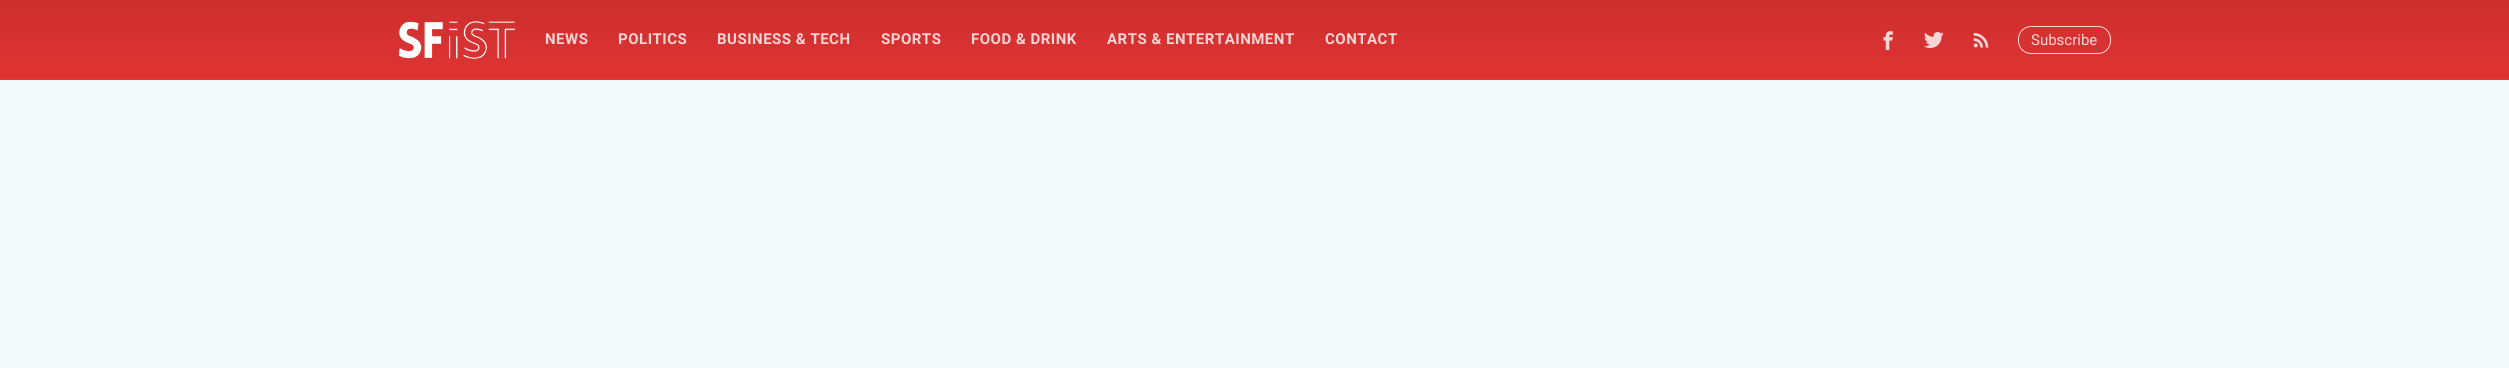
import math
import cairo


def write_spaced(ctx, x, y, s, letter, word):
	ctx.move_to(x, y)
	for ch in s:
		ctx.show_text(ch)
		ctx.rel_move_to(letter + word * (ch == ' '), 0)

def round_path(ctx, x, y, w, h, r):
	ctx.new_sub_path()
	for i, (u, v) in enumerate([(x + w - r, y + h - r), (x + r, y + h - r), (x + r, y + r), (x + w - r, y + r)]):
		ctx.arc(u, v, r, i * math.pi / 2, (i + 1) * math.pi / 2)
	ctx.close_path()

def paste(ctx, path, x, y, w, h):
	ctx.save()
	ctx.set_source_surface(cairo.ImageSurface.create_from_png(path), x, y)
	ctx.rectangle(x, y, w, h)
	ctx.fill()
	ctx.restore()

def draw(ctx):
	ctx.set_source_rgb(0.957, 0.973, 0.984)
	ctx.paint()
	ctx.set_source_rgb(0.894, 0.204, 0.204)
	ctx.rectangle(0, 0, 2509, 80)
	ctx.fill()
	gradient = cairo.LinearGradient(1255, 0, 1255, 100)
	gradient.add_color_stop_rgba(0, 0, 0, 0, 0.1)
	gradient.add_color_stop_rgba(1, 0, 0, 0, 0)
	ctx.set_source(gradient)
	ctx.rectangle(0, 0, 2509, 78)
	ctx.fill()
	paste(ctx, 'media/1.png', 398, 21, 117, 38)
	ctx.select_font_face('Roboto', cairo.FONT_SLANT_NORMAL, cairo.FONT_WEIGHT_BOLD)
	ctx.set_font_size(15)
	ctx.set_source_rgb(0.969, 0.839, 0.839)
	for x, y, s in [
		(545, 44, 'NEWS'),
		(618, 44, 'POLITICS'),
		(717, 44, 'BUSINESS & TECH'),
		(881, 44, 'SPORTS'),
		(971, 44, 'FOOD & DRINK'),
		(1107, 44, 'ARTS & ENTERTAINMENT'),
		(1325, 44, 'CONTACT'),
	]:
		write_spaced(ctx, x, y, s, 0.5, 0)
	paste(ctx, 'media/2.png', 1883, 31, 10, 19)
	paste(ctx, 'media/3.png', 1924, 32, 20, 16)
	paste(ctx, 'media/4.png', 1973, 33, 16, 15)
	round_path(ctx, 2018.5, 26.5, 92, 27, 12.5)
	ctx.set_source_rgba(1, 1, 1, 0.8)
	ctx.set_line_width(1)
	ctx.stroke()
	ctx.select_font_face('Roboto')
	ctx.set_source_rgb(0.969, 0.839, 0.839)
	ctx.move_to(2031, 45)
	ctx.show_text('Subscribe')


surface = cairo.ImageSurface(cairo.FORMAT_RGB24, 2509, 368)
ctx = cairo.Context(surface)
options = cairo.FontOptions()
options.set_hint_metrics(cairo.HINT_METRICS_OFF)
options.set_hint_style(cairo.HINT_STYLE_NONE)
ctx.set_font_options(options)
ctx.set_miter_limit(4)
draw(ctx)
surface.write_to_png('image.png')
